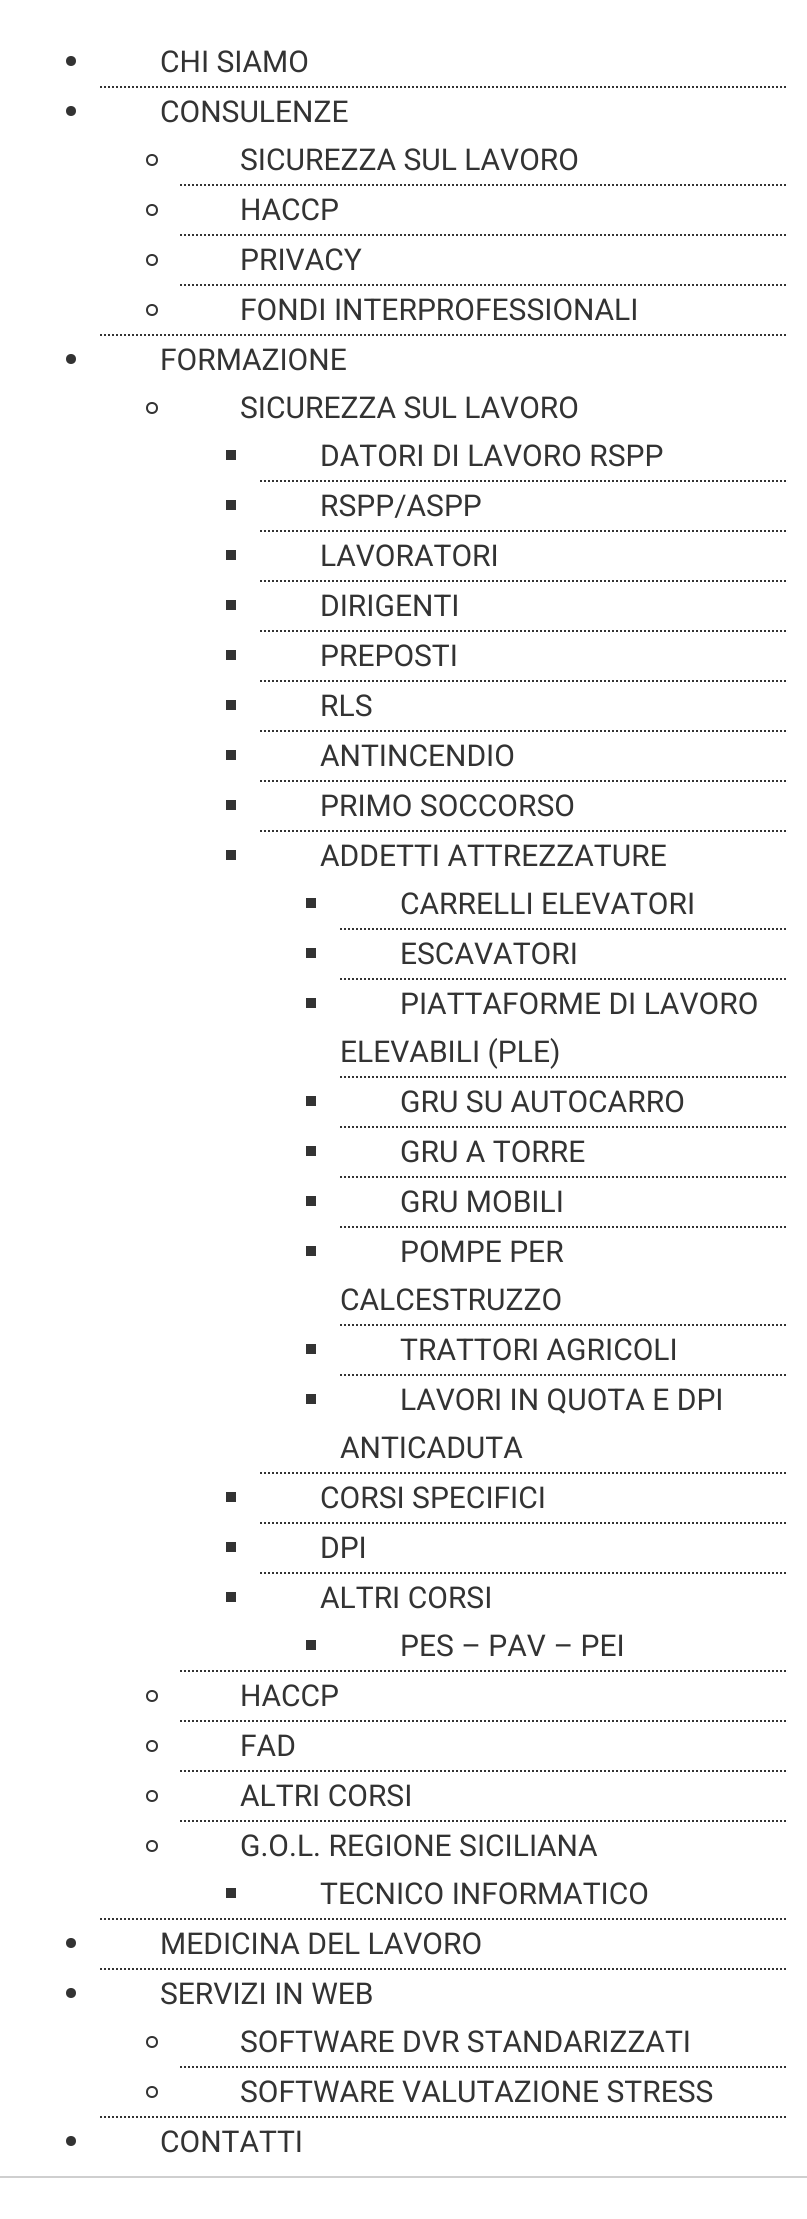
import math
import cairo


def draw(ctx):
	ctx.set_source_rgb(1, 1, 1)
	ctx.paint()
	ctx.set_source_rgb(0.812, 0.812, 0.812)
	ctx.rectangle(0, 2176, 807, 2)
	ctx.fill()
	ctx.new_path()
	ctx.move_to(100, 87)
	ctx.line_to(788, 87)
	ctx.set_source_rgb(0.2, 0.2, 0.2)
	ctx.set_dash([2, 2])
	ctx.stroke()
	ctx.arc(71, 61, 5, 0, 2 * math.pi)
	ctx.fill()
	ctx.select_font_face('Roboto')
	ctx.set_font_size(30)
	ctx.move_to(160, 72)
	ctx.show_text('CHI SIAMO')
	ctx.new_path()
	ctx.move_to(100, 335)
	ctx.line_to(788, 335)
	ctx.stroke()
	ctx.arc(71, 111, 5, 0, 2 * math.pi)
	ctx.fill()
	ctx.move_to(160, 122)
	ctx.show_text('CONSULENZE')
	ctx.new_path()
	ctx.move_to(180, 185)
	ctx.line_to(788, 185)
	ctx.stroke()
	ctx.arc(152, 160, 5, 0, 2 * math.pi)
	ctx.set_dash([])
	ctx.stroke()
	ctx.move_to(240, 170)
	ctx.show_text('SICUREZZA SUL LAVORO')
	ctx.new_path()
	ctx.move_to(180, 235)
	ctx.line_to(788, 235)
	ctx.set_dash([2, 2])
	ctx.stroke()
	ctx.arc(152, 210, 5, 0, 2 * math.pi)
	ctx.set_dash([])
	ctx.stroke()
	ctx.move_to(240, 220)
	ctx.show_text('HACCP')
	ctx.new_path()
	ctx.move_to(180, 285)
	ctx.line_to(788, 285)
	ctx.set_dash([2, 2])
	ctx.stroke()
	ctx.arc(152, 260, 5, 0, 2 * math.pi)
	ctx.set_dash([])
	ctx.stroke()
	ctx.move_to(240, 270)
	ctx.show_text('PRIVACY')
	ctx.new_path()
	ctx.arc(152, 310, 5, 0, 2 * math.pi)
	ctx.stroke()
	ctx.move_to(240, 320)
	ctx.show_text('FONDI INTERPROFESSIONALI')
	ctx.new_path()
	ctx.move_to(100, 1919)
	ctx.line_to(788, 1919)
	ctx.set_dash([2, 2])
	ctx.stroke()
	ctx.arc(71, 359, 5, 0, 2 * math.pi)
	ctx.fill()
	ctx.move_to(160, 370)
	ctx.show_text('FORMAZIONE')
	ctx.new_path()
	ctx.move_to(180, 1671)
	ctx.line_to(788, 1671)
	ctx.stroke()
	ctx.arc(152, 408, 5, 0, 2 * math.pi)
	ctx.set_dash([])
	ctx.stroke()
	ctx.move_to(240, 418)
	ctx.show_text('SICUREZZA SUL LAVORO')
	ctx.new_path()
	ctx.move_to(260, 481)
	ctx.line_to(788, 481)
	ctx.set_dash([2, 2])
	ctx.stroke()
	ctx.rectangle(226, 450, 10, 10)
	ctx.fill()
	ctx.move_to(320, 466)
	ctx.show_text('DATORI DI LAVORO RSPP')
	ctx.new_path()
	ctx.move_to(260, 531)
	ctx.line_to(788, 531)
	ctx.stroke()
	ctx.rectangle(226, 500, 10, 10)
	ctx.fill()
	ctx.move_to(320, 516)
	ctx.show_text('RSPP/ASPP')
	ctx.new_path()
	ctx.move_to(260, 581)
	ctx.line_to(788, 581)
	ctx.stroke()
	ctx.rectangle(226, 550, 10, 10)
	ctx.fill()
	ctx.move_to(320, 566)
	ctx.show_text('LAVORATORI')
	ctx.new_path()
	ctx.move_to(260, 631)
	ctx.line_to(788, 631)
	ctx.stroke()
	ctx.rectangle(226, 600, 10, 10)
	ctx.fill()
	ctx.move_to(320, 616)
	ctx.show_text('DIRIGENTI')
	ctx.new_path()
	ctx.move_to(260, 681)
	ctx.line_to(788, 681)
	ctx.stroke()
	ctx.rectangle(226, 650, 10, 10)
	ctx.fill()
	ctx.move_to(320, 666)
	ctx.show_text('PREPOSTI')
	ctx.new_path()
	ctx.move_to(260, 731)
	ctx.line_to(788, 731)
	ctx.stroke()
	ctx.rectangle(226, 700, 10, 10)
	ctx.fill()
	ctx.move_to(320, 716)
	ctx.show_text('RLS')
	ctx.new_path()
	ctx.move_to(260, 781)
	ctx.line_to(788, 781)
	ctx.stroke()
	ctx.rectangle(226, 750, 10, 10)
	ctx.fill()
	ctx.move_to(320, 766)
	ctx.show_text('ANTINCENDIO')
	ctx.new_path()
	ctx.move_to(260, 831)
	ctx.line_to(788, 831)
	ctx.stroke()
	ctx.rectangle(226, 800, 10, 10)
	ctx.fill()
	ctx.move_to(320, 816)
	ctx.show_text('PRIMO SOCCORSO')
	ctx.new_path()
	ctx.move_to(260, 1473)
	ctx.line_to(788, 1473)
	ctx.stroke()
	ctx.rectangle(226, 850, 10, 10)
	ctx.fill()
	ctx.move_to(320, 866)
	ctx.show_text('ADDETTI ATTREZZATURE')
	ctx.new_path()
	ctx.move_to(340, 929)
	ctx.line_to(788, 929)
	ctx.stroke()
	ctx.rectangle(306, 898, 10, 10)
	ctx.fill()
	ctx.move_to(400, 914)
	ctx.show_text('CARRELLI ELEVATORI')
	ctx.new_path()
	ctx.move_to(340, 979)
	ctx.line_to(788, 979)
	ctx.stroke()
	ctx.rectangle(306, 948, 10, 10)
	ctx.fill()
	ctx.move_to(400, 964)
	ctx.show_text('ESCAVATORI')
	ctx.new_path()
	ctx.move_to(340, 1077)
	ctx.line_to(788, 1077)
	ctx.stroke()
	ctx.rectangle(306, 998, 10, 10)
	ctx.fill()
	ctx.move_to(400, 1014)
	ctx.show_text('PIATTAFORME DI LAVORO')
	ctx.move_to(340, 1062)
	ctx.show_text('ELEVABILI (PLE)')
	ctx.new_path()
	ctx.move_to(340, 1127)
	ctx.line_to(788, 1127)
	ctx.stroke()
	ctx.rectangle(306, 1096, 10, 10)
	ctx.fill()
	ctx.move_to(400, 1112)
	ctx.show_text('GRU SU AUTOCARRO')
	ctx.new_path()
	ctx.move_to(340, 1177)
	ctx.line_to(788, 1177)
	ctx.stroke()
	ctx.rectangle(306, 1146, 10, 10)
	ctx.fill()
	ctx.move_to(400, 1162)
	ctx.show_text('GRU A TORRE')
	ctx.new_path()
	ctx.move_to(340, 1227)
	ctx.line_to(788, 1227)
	ctx.stroke()
	ctx.rectangle(306, 1196, 10, 10)
	ctx.fill()
	ctx.move_to(400, 1212)
	ctx.show_text('GRU MOBILI')
	ctx.new_path()
	ctx.move_to(340, 1325)
	ctx.line_to(788, 1325)
	ctx.stroke()
	ctx.rectangle(306, 1246, 10, 10)
	ctx.fill()
	ctx.move_to(400, 1262)
	ctx.show_text('POMPE PER')
	ctx.move_to(340, 1310)
	ctx.show_text('CALCESTRUZZO')
	ctx.new_path()
	ctx.move_to(340, 1375)
	ctx.line_to(788, 1375)
	ctx.stroke()
	ctx.rectangle(306, 1344, 10, 10)
	ctx.fill()
	ctx.move_to(400, 1360)
	ctx.show_text('TRATTORI AGRICOLI')
	ctx.rectangle(306, 1394, 10, 10)
	ctx.fill()
	ctx.move_to(400, 1410)
	ctx.show_text('LAVORI IN QUOTA E DPI')
	ctx.move_to(340, 1458)
	ctx.show_text('ANTICADUTA')
	ctx.new_path()
	ctx.move_to(260, 1523)
	ctx.line_to(788, 1523)
	ctx.stroke()
	ctx.rectangle(226, 1492, 10, 10)
	ctx.fill()
	ctx.move_to(320, 1508)
	ctx.show_text('CORSI SPECIFICI')
	ctx.new_path()
	ctx.move_to(260, 1573)
	ctx.line_to(788, 1573)
	ctx.stroke()
	ctx.rectangle(226, 1542, 10, 10)
	ctx.fill()
	ctx.move_to(320, 1558)
	ctx.show_text('DPI')
	ctx.rectangle(226, 1592, 10, 10)
	ctx.fill()
	ctx.move_to(320, 1608)
	ctx.show_text('ALTRI CORSI')
	ctx.rectangle(306, 1640, 10, 10)
	ctx.fill()
	ctx.move_to(400, 1656)
	ctx.show_text('PES – PAV – PEI')
	ctx.new_path()
	ctx.move_to(180, 1721)
	ctx.line_to(788, 1721)
	ctx.stroke()
	ctx.arc(152, 1696, 5, 0, 2 * math.pi)
	ctx.set_dash([])
	ctx.stroke()
	ctx.move_to(240, 1706)
	ctx.show_text('HACCP')
	ctx.new_path()
	ctx.move_to(180, 1771)
	ctx.line_to(788, 1771)
	ctx.set_dash([2, 2])
	ctx.stroke()
	ctx.arc(152, 1746, 5, 0, 2 * math.pi)
	ctx.set_dash([])
	ctx.stroke()
	ctx.move_to(240, 1756)
	ctx.show_text('FAD')
	ctx.new_path()
	ctx.move_to(180, 1821)
	ctx.line_to(788, 1821)
	ctx.set_dash([2, 2])
	ctx.stroke()
	ctx.arc(152, 1796, 5, 0, 2 * math.pi)
	ctx.set_dash([])
	ctx.stroke()
	ctx.move_to(240, 1806)
	ctx.show_text('ALTRI CORSI')
	ctx.new_path()
	ctx.arc(152, 1846, 5, 0, 2 * math.pi)
	ctx.stroke()
	ctx.move_to(240, 1856)
	ctx.show_text('G.O.L. REGIONE SICILIANA')
	ctx.rectangle(226, 1888, 10, 10)
	ctx.fill()
	ctx.move_to(320, 1904)
	ctx.show_text('TECNICO INFORMATICO')
	ctx.new_path()
	ctx.move_to(100, 1969)
	ctx.line_to(788, 1969)
	ctx.set_dash([2, 2])
	ctx.stroke()
	ctx.arc(71, 1943, 5, 0, 2 * math.pi)
	ctx.fill()
	ctx.move_to(160, 1954)
	ctx.show_text('MEDICINA DEL LAVORO')
	ctx.new_path()
	ctx.move_to(100, 2117)
	ctx.line_to(788, 2117)
	ctx.stroke()
	ctx.arc(71, 1993, 5, 0, 2 * math.pi)
	ctx.fill()
	ctx.move_to(160, 2004)
	ctx.show_text('SERVIZI IN WEB')
	ctx.new_path()
	ctx.move_to(180, 2067)
	ctx.line_to(788, 2067)
	ctx.stroke()
	ctx.arc(152, 2042, 5, 0, 2 * math.pi)
	ctx.set_dash([])
	ctx.stroke()
	ctx.move_to(240, 2052)
	ctx.show_text('SOFTWARE DVR STANDARIZZATI')
	ctx.new_path()
	ctx.arc(152, 2092, 5, 0, 2 * math.pi)
	ctx.stroke()
	ctx.move_to(240, 2102)
	ctx.show_text('SOFTWARE VALUTAZIONE STRESS')
	ctx.new_path()
	ctx.arc(71, 2141, 5, 0, 2 * math.pi)
	ctx.fill()
	ctx.move_to(160, 2152)
	ctx.show_text('CONTATTI')


surface = cairo.ImageSurface(cairo.FORMAT_RGB24, 807, 2219)
ctx = cairo.Context(surface)
options = cairo.FontOptions()
options.set_hint_metrics(cairo.HINT_METRICS_OFF)
options.set_hint_style(cairo.HINT_STYLE_NONE)
ctx.set_font_options(options)
ctx.set_miter_limit(4)
draw(ctx)
surface.write_to_png('image.png')
